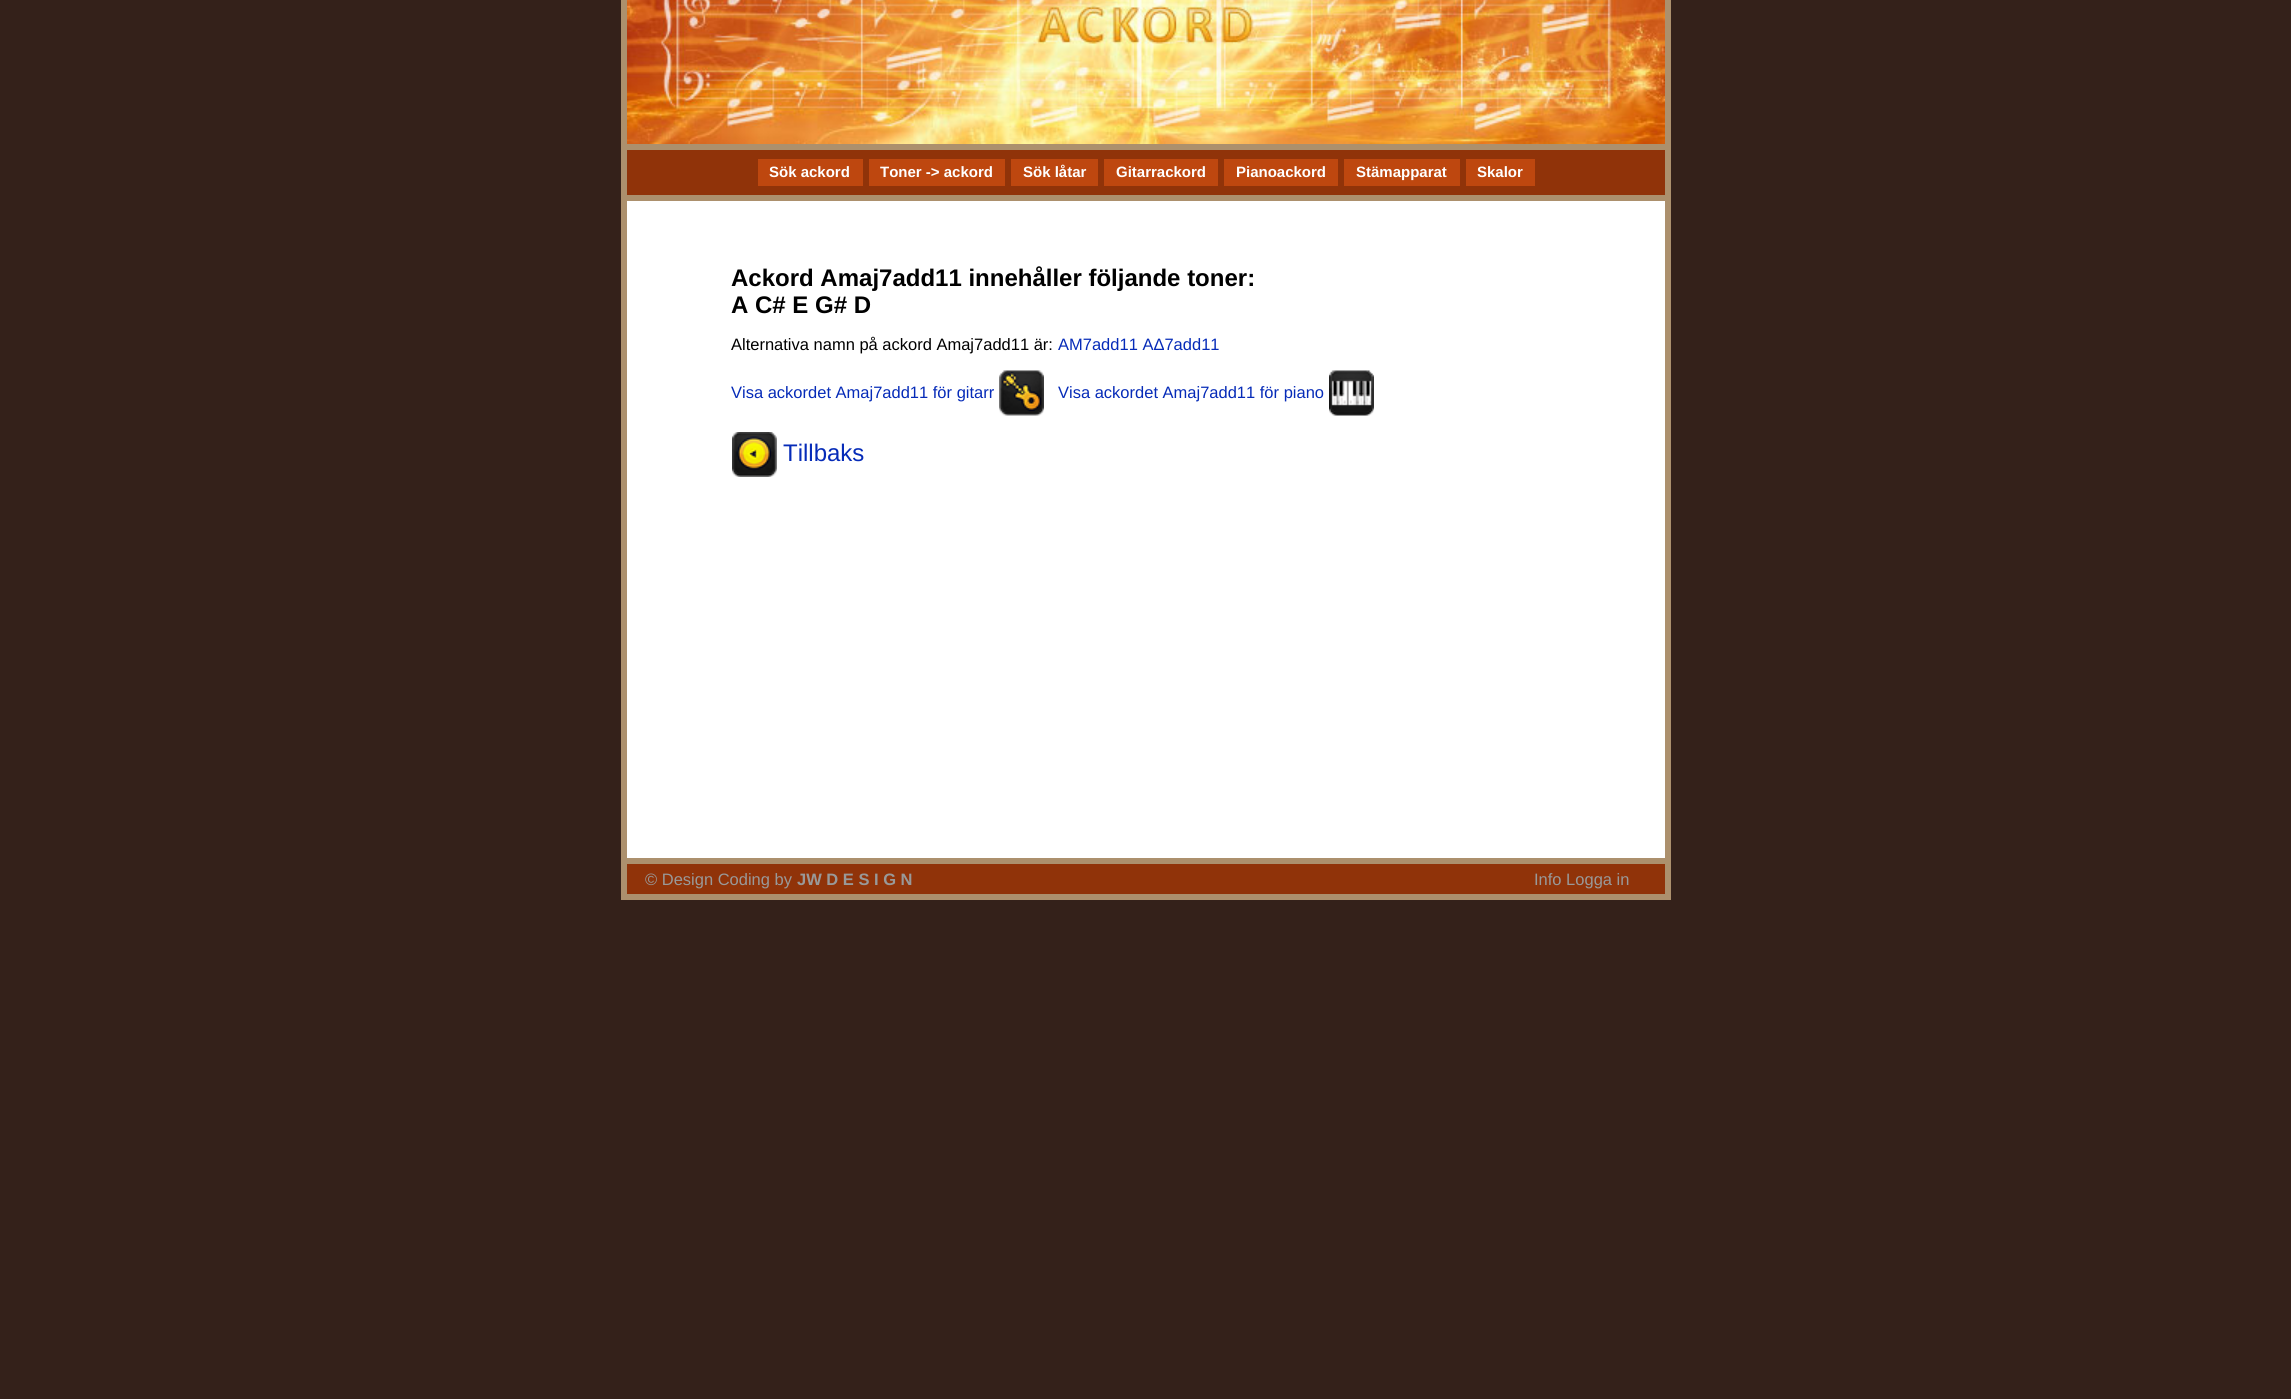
import math
import cairo


def paste(ctx, path, x, y, w, h):
	ctx.save()
	ctx.set_source_surface(cairo.ImageSurface.create_from_png(path), x, y)
	ctx.rectangle(x, y, w, h)
	ctx.fill()
	ctx.restore()

def draw(ctx):
	ctx.set_source_rgb(0.204, 0.129, 0.102)
	ctx.paint()
	ctx.set_source_rgb(1, 1, 1)
	ctx.rectangle(627, 201, 1038, 657)
	ctx.fill()
	ctx.rectangle(624, -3, 1044, 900)
	ctx.set_source_rgb(0.675, 0.565, 0.427)
	ctx.set_line_width(6)
	ctx.stroke()
	paste(ctx, 'media/1.png', 627, 0, 1038, 144)
	ctx.set_source_rgb(0.565, 0.2, 0.039)
	ctx.rectangle(627, 150, 1038, 45)
	ctx.fill()
	ctx.set_source_rgb(0.675, 0.565, 0.427)
	ctx.rectangle(627, 144, 1038, 6)
	ctx.rectangle(627, 195, 1038, 6)
	ctx.fill()
	ctx.set_source_rgb(0.745, 0.278, 0.059)
	ctx.rectangle(758, 159, 105, 27)
	ctx.fill()
	ctx.select_font_face('Liberation Sans', cairo.FONT_SLANT_NORMAL, cairo.FONT_WEIGHT_BOLD)
	ctx.set_font_size(15)
	ctx.set_source_rgb(1, 1, 1)
	ctx.move_to(769, 177)
	ctx.show_text('Sök ackord')
	ctx.set_source_rgb(0.745, 0.278, 0.059)
	ctx.rectangle(869, 159, 136, 27)
	ctx.fill()
	ctx.set_source_rgb(1, 1, 1)
	ctx.move_to(880, 177)
	ctx.show_text('Toner -> ackord')
	ctx.set_source_rgb(0.745, 0.278, 0.059)
	ctx.rectangle(1011, 159, 87, 27)
	ctx.fill()
	ctx.set_source_rgb(1, 1, 1)
	ctx.move_to(1023, 177)
	ctx.show_text('Sök låtar')
	ctx.set_source_rgb(0.745, 0.278, 0.059)
	ctx.rectangle(1104, 159, 114, 27)
	ctx.fill()
	ctx.set_source_rgb(1, 1, 1)
	ctx.move_to(1116, 177)
	ctx.show_text('Gitarrackord')
	ctx.set_source_rgb(0.745, 0.278, 0.059)
	ctx.rectangle(1224, 159, 114, 27)
	ctx.fill()
	ctx.set_source_rgb(1, 1, 1)
	ctx.move_to(1236, 177)
	ctx.show_text('Pianoackord')
	ctx.set_source_rgb(0.745, 0.278, 0.059)
	ctx.rectangle(1344, 159, 116, 27)
	ctx.fill()
	ctx.set_source_rgb(1, 1, 1)
	ctx.move_to(1356, 177)
	ctx.show_text('Stämapparat')
	ctx.set_source_rgb(0.745, 0.278, 0.059)
	ctx.rectangle(1466, 159, 69, 27)
	ctx.fill()
	ctx.set_source_rgb(1, 1, 1)
	ctx.move_to(1477, 177)
	ctx.show_text('Skalor')
	ctx.set_font_size(24)
	ctx.set_source_rgb(0, 0, 0)
	ctx.move_to(731, 286)
	ctx.show_text('Ackord Amaj7add11 innehåller följande toner:')
	ctx.move_to(731, 313)
	ctx.show_text('A C# E G# D')
	ctx.select_font_face('Liberation Sans')
	ctx.set_font_size(16.5)
	ctx.move_to(731, 350)
	ctx.show_text('Alternativa namn på ackord Amaj7add11 är:')
	ctx.set_source_rgb(0.027, 0.169, 0.722)
	ctx.move_to(1058, 350)
	ctx.show_text('AM7add11 AΔ7add11')
	ctx.move_to(731, 398)
	ctx.show_text('Visa ackordet Amaj7add11 för gitarr')
	paste(ctx, 'media/2.png', 999, 370, 45, 46)
	ctx.move_to(1058, 398)
	ctx.show_text('Visa ackordet Amaj7add11 för piano')
	paste(ctx, 'media/3.png', 1329, 370, 45, 46)
	paste(ctx, 'media/4.png', 732, 432, 45, 45)
	ctx.set_font_size(24)
	ctx.move_to(783, 461)
	ctx.show_text('Tillbaks')
	ctx.set_source_rgb(0.565, 0.2, 0.039)
	ctx.rectangle(627, 864, 1038, 30)
	ctx.fill()
	ctx.set_source_rgb(0.675, 0.565, 0.427)
	ctx.rectangle(627, 858, 1038, 6)
	ctx.fill()
	ctx.set_font_size(16.5)
	ctx.set_source_rgb(0.6, 0.6, 0.6)
	ctx.move_to(645, 885)
	ctx.show_text('© Design Coding by')
	ctx.select_font_face('Liberation Sans', cairo.FONT_SLANT_NORMAL, cairo.FONT_WEIGHT_BOLD)
	ctx.move_to(797, 885)
	ctx.show_text('JW D E S I G N')
	ctx.select_font_face('Liberation Sans')
	ctx.move_to(1534, 885)
	ctx.show_text('Info Logga in')


surface = cairo.ImageSurface(cairo.FORMAT_RGB24, 2291, 1399)
ctx = cairo.Context(surface)
options = cairo.FontOptions()
options.set_hint_metrics(cairo.HINT_METRICS_OFF)
options.set_hint_style(cairo.HINT_STYLE_NONE)
ctx.set_font_options(options)
ctx.set_miter_limit(4)
draw(ctx)
surface.write_to_png('image.png')
